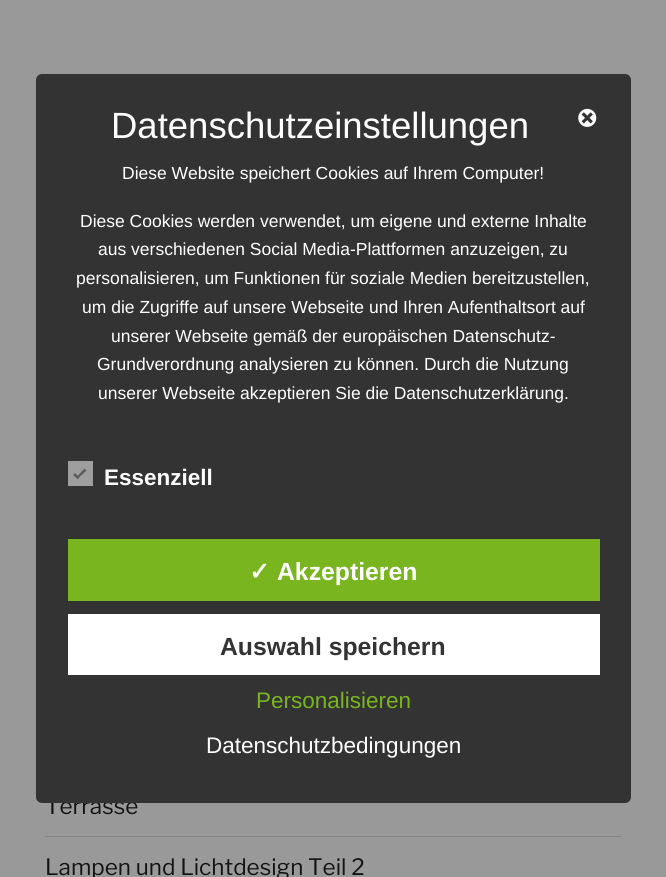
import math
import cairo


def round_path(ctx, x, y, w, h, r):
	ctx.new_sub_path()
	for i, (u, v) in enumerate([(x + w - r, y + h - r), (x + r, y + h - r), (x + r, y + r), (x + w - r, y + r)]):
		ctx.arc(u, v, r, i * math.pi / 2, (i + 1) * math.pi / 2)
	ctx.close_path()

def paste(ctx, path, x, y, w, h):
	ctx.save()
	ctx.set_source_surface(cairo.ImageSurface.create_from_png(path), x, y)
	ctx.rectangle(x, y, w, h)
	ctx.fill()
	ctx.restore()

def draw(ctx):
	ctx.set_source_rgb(0.6, 0.6, 0.6)
	ctx.paint()
	ctx.select_font_face('Libre Franklin Thin')
	ctx.set_font_size(22.5)
	ctx.set_source_rgb(0.078, 0.078, 0.078)
	ctx.move_to(45, 814)
	ctx.show_text('Terrasse')
	ctx.set_source_rgb(0.2, 0.2, 0.2)
	round_path(ctx, 36, 74, 595, 729, 6)
	ctx.fill()
	ctx.select_font_face('Liberation Sans')
	ctx.set_font_size(36.5)
	ctx.set_source_rgb(1, 1, 1)
	ctx.move_to(111, 138)
	ctx.show_text('Datenschutzeinstellungen')
	paste(ctx, 'media/1.png', 578, 108, 19, 19)
	ctx.set_font_size(17.5)
	for x, y, s in [
		(122, 179, 'Diese Website speichert Cookies auf Ihrem Computer!'),
		(80, 227, 'Diese Cookies werden verwendet, um eigene und externe Inhalte'),
		(98, 255, 'aus verschiedenen Social Media-Plattformen anzuzeigen, zu'),
		(76, 284, 'personalisieren, um Funktionen für soziale Medien bereitzustellen,'),
		(82, 313, 'um die Zugriffe auf unsere Webseite und Ihren Aufenthaltsort auf'),
		(111, 342, 'unserer Webseite gemäß der europäischen Datenschutz-'),
		(97, 370, 'Grundverordnung analysieren zu können. Durch die Nutzung'),
		(98, 399, 'unserer Webseite akzeptieren Sie die Datenschutzerklärung.'),
	]:
		ctx.move_to(x, y)
		ctx.show_text(s)
	ctx.set_source_rgb(0.62, 0.62, 0.62)
	ctx.rectangle(68, 461, 25, 25)
	ctx.fill()
	ctx.set_source_rgb(0.369, 0.369, 0.369)
	ctx.new_path()
	ctx.move_to(84.5, 468.5)
	ctx.line_to(86.5, 470.5)
	ctx.line_to(77.5, 479)
	ctx.line_to(76, 477.5)
	ctx.close_path()
	ctx.fill()
	ctx.new_path()
	ctx.move_to(75, 473)
	ctx.line_to(79.5, 477.5)
	ctx.line_to(77.5, 479)
	ctx.line_to(73, 475)
	ctx.close_path()
	ctx.fill()
	ctx.select_font_face('Liberation Sans', cairo.FONT_SLANT_NORMAL, cairo.FONT_WEIGHT_BOLD)
	ctx.set_font_size(22.5)
	ctx.set_source_rgb(1, 1, 1)
	ctx.move_to(104, 485)
	ctx.show_text('Essenziell')
	ctx.set_source_rgb(0.475, 0.71, 0.122)
	ctx.rectangle(68, 539, 532, 62)
	ctx.fill()
	ctx.select_font_face('DejaVu Sans', cairo.FONT_SLANT_NORMAL, cairo.FONT_WEIGHT_BOLD)
	ctx.set_font_size(24.75)
	ctx.set_source_rgb(1, 1, 1)
	ctx.move_to(249, 580)
	ctx.show_text('✓')
	ctx.select_font_face('Liberation Sans', cairo.FONT_SLANT_NORMAL, cairo.FONT_WEIGHT_BOLD)
	ctx.move_to(277, 580)
	ctx.show_text('Akzeptieren')
	ctx.rectangle(68, 614, 532, 61)
	ctx.fill()
	ctx.set_source_rgb(0.2, 0.2, 0.2)
	ctx.move_to(220, 655)
	ctx.show_text('Auswahl speichern')
	ctx.select_font_face('Liberation Sans')
	ctx.set_font_size(22.5)
	ctx.set_source_rgb(0.475, 0.71, 0.122)
	ctx.move_to(256, 708)
	ctx.show_text('Personalisieren')
	ctx.set_source_rgb(1, 1, 1)
	ctx.move_to(206, 753)
	ctx.show_text('Datenschutzbedingungen')
	ctx.set_source_rgb(0.522, 0.522, 0.522)
	ctx.rectangle(45, 836, 576, 1)
	ctx.fill()
	ctx.select_font_face('Libre Franklin Thin')
	ctx.set_source_rgb(0.078, 0.078, 0.078)
	ctx.move_to(45, 875)
	ctx.show_text('Lampen und Lichtdesign Teil 2')


surface = cairo.ImageSurface(cairo.FORMAT_RGB24, 666, 877)
ctx = cairo.Context(surface)
options = cairo.FontOptions()
options.set_hint_metrics(cairo.HINT_METRICS_OFF)
options.set_hint_style(cairo.HINT_STYLE_NONE)
ctx.set_font_options(options)
ctx.set_miter_limit(4)
draw(ctx)
surface.write_to_png('image.png')
